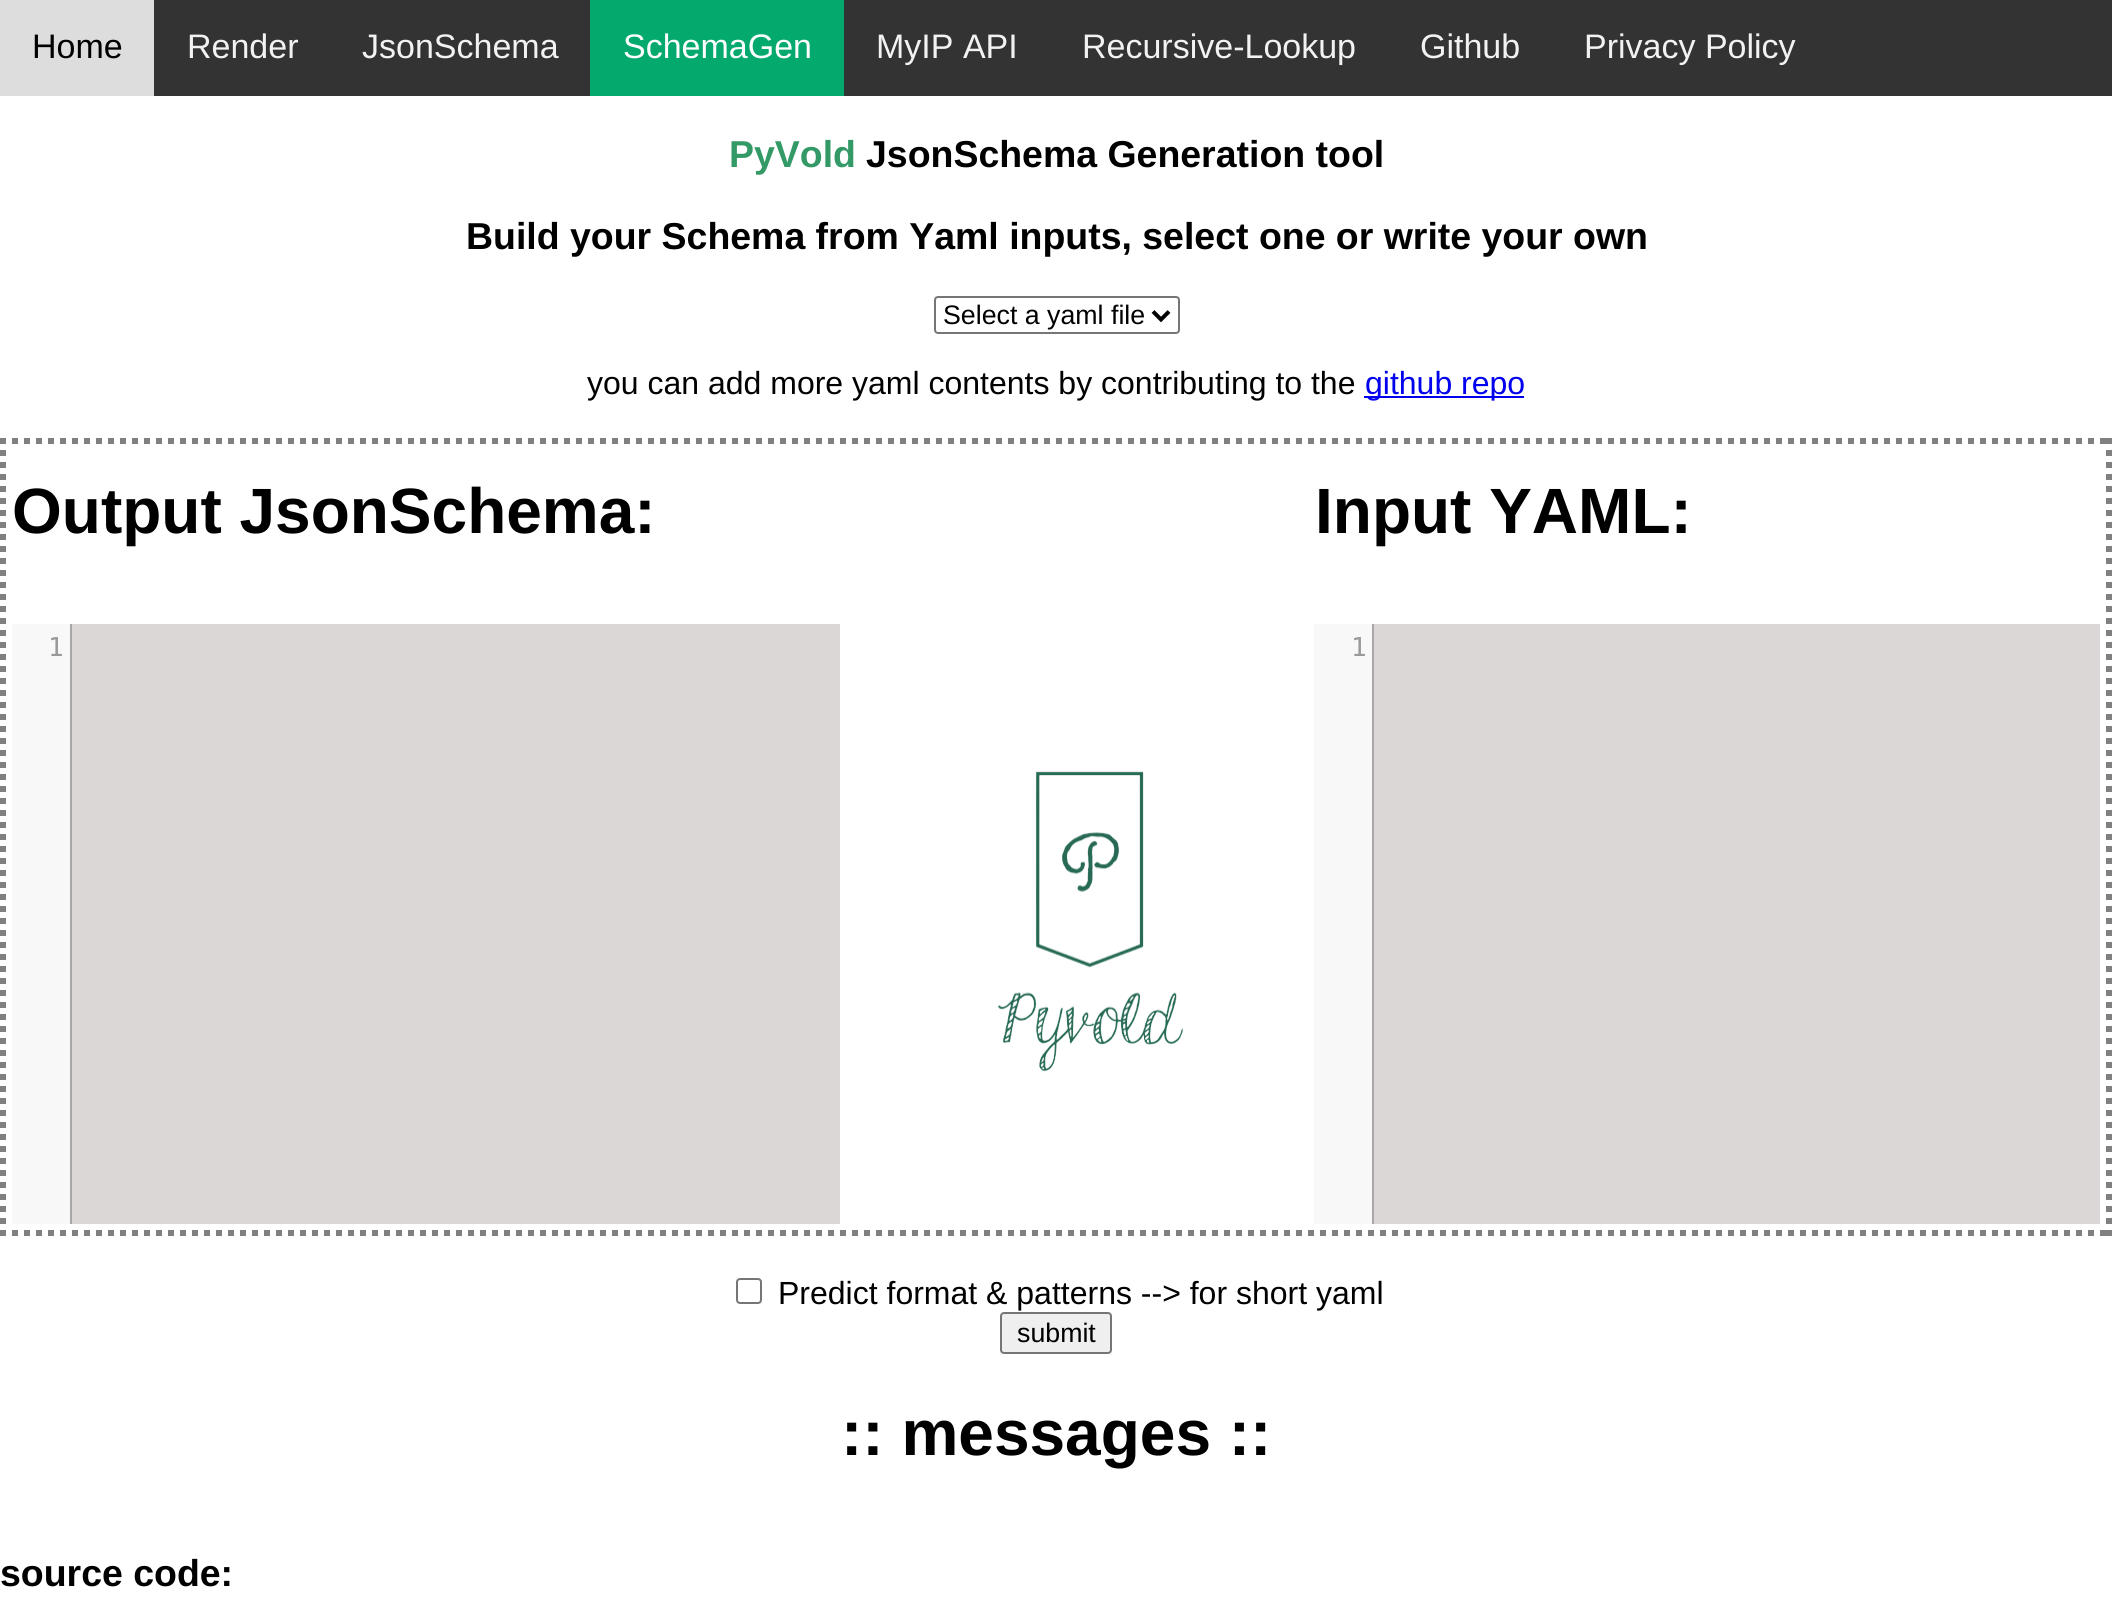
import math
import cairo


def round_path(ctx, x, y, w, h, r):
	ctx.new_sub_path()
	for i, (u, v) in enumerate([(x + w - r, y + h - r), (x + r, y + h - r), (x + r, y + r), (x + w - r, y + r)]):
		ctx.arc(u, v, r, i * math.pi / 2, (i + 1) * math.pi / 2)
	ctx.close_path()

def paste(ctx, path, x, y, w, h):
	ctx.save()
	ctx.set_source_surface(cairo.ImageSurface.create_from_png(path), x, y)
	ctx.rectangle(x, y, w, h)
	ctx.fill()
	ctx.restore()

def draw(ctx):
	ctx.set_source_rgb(1, 1, 1)
	ctx.paint()
	ctx.set_source_rgb(0.2, 0.2, 0.2)
	ctx.rectangle(154, 0, 1958, 96)
	ctx.fill()
	ctx.set_source_rgb(0.867, 0.867, 0.867)
	ctx.rectangle(0, 0, 154, 96)
	ctx.fill()
	ctx.select_font_face('Liberation Sans')
	ctx.set_font_size(34)
	ctx.set_source_rgb(0, 0, 0)
	ctx.move_to(32, 58)
	ctx.show_text('Home')
	ctx.set_source_rgb(0.949, 0.949, 0.949)
	ctx.move_to(187, 58)
	ctx.show_text('Render')
	ctx.move_to(362, 58)
	ctx.show_text('JsonSchema')
	ctx.set_source_rgb(0.016, 0.667, 0.427)
	ctx.rectangle(590, 0, 254, 96)
	ctx.fill()
	ctx.set_source_rgb(1, 1, 1)
	ctx.move_to(623, 58)
	ctx.show_text('SchemaGen')
	ctx.set_source_rgb(0.949, 0.949, 0.949)
	for x, y, s in [
		(876, 58, 'MyIP API'),
		(1082, 58, 'Recursive-Lookup'),
		(1420, 58, 'Github'),
		(1584, 58, 'Privacy Policy'),
	]:
		ctx.move_to(x, y)
		ctx.show_text(s)
	ctx.select_font_face('Liberation Sans', cairo.FONT_SLANT_NORMAL, cairo.FONT_WEIGHT_BOLD)
	ctx.set_font_size(37.45)
	ctx.set_source_rgb(0.2, 0.6, 0.4)
	ctx.move_to(729, 167)
	ctx.show_text('PyVold')
	ctx.set_source_rgb(0, 0, 0)
	ctx.move_to(866, 167)
	ctx.show_text('JsonSchema Generation tool')
	ctx.move_to(466, 249)
	ctx.show_text('Build your Schema from Yaml inputs, select one or write your own')
	round_path(ctx, 935, 297, 244, 36, 3)
	ctx.set_source_rgb(0.463, 0.463, 0.463)
	ctx.stroke()
	ctx.new_path()
	ctx.move_to(1153, 311.5)
	ctx.line_to(1161, 319.5)
	ctx.line_to(1169, 311.5)
	ctx.set_source_rgb(0, 0, 0)
	ctx.set_line_width(4)
	ctx.stroke()
	ctx.select_font_face('Liberation Sans')
	ctx.set_font_size(26.75)
	ctx.move_to(943, 324)
	ctx.show_text('Select a yaml file')
	ctx.set_font_size(32)
	ctx.move_to(587, 394)
	ctx.show_text('you can add more yaml contents by contributing to the')
	ctx.set_source_rgb(0, 0, 0.933)
	ctx.rectangle(1364, 396, 160, 2)
	ctx.fill()
	ctx.move_to(1365, 394)
	ctx.show_text('github repo')
	ctx.new_path()
	ctx.move_to(0, 441)
	ctx.line_to(2112, 441)
	ctx.set_source_rgb(0.502, 0.502, 0.502)
	ctx.set_line_width(6)
	ctx.set_dash([6, 6])
	ctx.stroke()
	ctx.new_path()
	ctx.move_to(2109, 438)
	ctx.line_to(2109, 1236)
	ctx.stroke()
	ctx.new_path()
	ctx.move_to(0, 1233)
	ctx.line_to(2112, 1233)
	ctx.stroke()
	ctx.new_path()
	ctx.move_to(3, 438)
	ctx.line_to(3, 1236)
	ctx.stroke()
	ctx.select_font_face('Liberation Sans', cairo.FONT_SLANT_NORMAL, cairo.FONT_WEIGHT_BOLD)
	ctx.set_font_size(64)
	ctx.set_source_rgb(0, 0, 0)
	ctx.move_to(12, 533)
	ctx.show_text('Output JsonSchema:')
	ctx.move_to(1315, 533)
	ctx.show_text('Input YAML:')
	ctx.set_source_rgb(0.859, 0.843, 0.843)
	ctx.rectangle(72, 624, 768, 600)
	ctx.fill()
	ctx.set_source_rgb(0.969, 0.969, 0.969)
	ctx.rectangle(12, 624, 58, 600)
	ctx.fill()
	ctx.set_source_rgb(0.659, 0.651, 0.651)
	ctx.rectangle(70, 624, 2, 600)
	ctx.fill()
	ctx.select_font_face('DejaVu Sans Mono')
	ctx.set_font_size(26)
	ctx.set_source_rgb(0.6, 0.6, 0.6)
	ctx.move_to(48, 656)
	ctx.show_text('1')
	ctx.set_source_rgb(0.859, 0.843, 0.843)
	ctx.rectangle(1374, 624, 726, 600)
	ctx.fill()
	ctx.set_source_rgb(0.969, 0.969, 0.969)
	ctx.rectangle(1314, 624, 58, 600)
	ctx.fill()
	ctx.set_source_rgb(0.659, 0.651, 0.651)
	ctx.rectangle(1372, 624, 2, 600)
	ctx.fill()
	ctx.set_source_rgb(0.6, 0.6, 0.6)
	ctx.move_to(1351, 656)
	ctx.show_text('1')
	paste(ctx, 'media/1.png', 998, 771, 185, 301)
	round_path(ctx, 737, 1279, 24, 24, 3)
	ctx.set_source_rgb(0.463, 0.463, 0.463)
	ctx.set_line_width(2)
	ctx.set_dash([])
	ctx.stroke()
	ctx.select_font_face('Liberation Sans')
	ctx.set_font_size(32)
	ctx.set_source_rgb(0, 0, 0)
	ctx.move_to(778, 1304)
	ctx.show_text('Predict format & patterns --> for short yaml')
	ctx.set_source_rgb(0.937, 0.937, 0.937)
	round_path(ctx, 1001, 1313, 110, 40, 3)
	ctx.fill_preserve()
	ctx.set_source_rgb(0.463, 0.463, 0.463)
	ctx.stroke()
	ctx.set_font_size(26.75)
	ctx.set_source_rgb(0, 0, 0)
	ctx.move_to(1017, 1342)
	ctx.show_text('submit')
	ctx.select_font_face('Liberation Sans', cairo.FONT_SLANT_NORMAL, cairo.FONT_WEIGHT_BOLD)
	ctx.set_font_size(64)
	ctx.move_to(841, 1455)
	ctx.show_text(':: messages ::')
	ctx.set_font_size(37.45)
	ctx.move_to(0, 1586)
	ctx.show_text('source code:')


surface = cairo.ImageSurface(cairo.FORMAT_RGB24, 2112, 1600)
ctx = cairo.Context(surface)
options = cairo.FontOptions()
options.set_hint_metrics(cairo.HINT_METRICS_OFF)
options.set_hint_style(cairo.HINT_STYLE_NONE)
ctx.set_font_options(options)
ctx.set_miter_limit(4)
draw(ctx)
surface.write_to_png('image.png')
